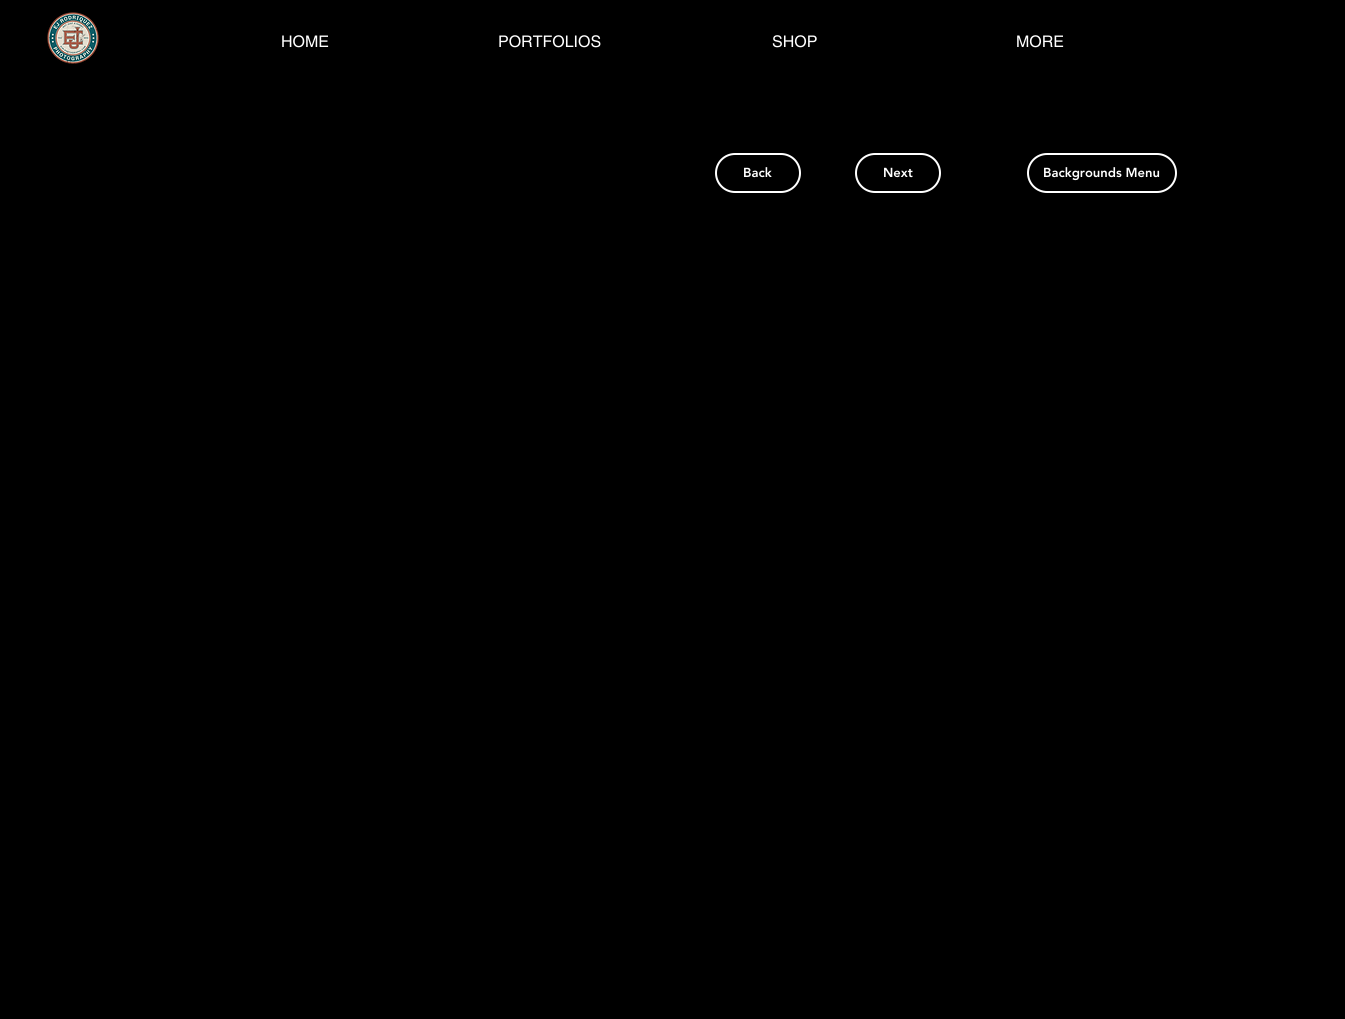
import math
import cairo


def round_path(ctx, x, y, w, h, r):
	ctx.new_sub_path()
	for i, (u, v) in enumerate([(x + w - r, y + h - r), (x + r, y + h - r), (x + r, y + r), (x + w - r, y + r)]):
		ctx.arc(u, v, r, i * math.pi / 2, (i + 1) * math.pi / 2)
	ctx.close_path()

def paste(ctx, path, x, y, w, h):
	ctx.save()
	ctx.set_source_surface(cairo.ImageSurface.create_from_png(path), x, y)
	ctx.rectangle(x, y, w, h)
	ctx.fill()
	ctx.restore()

def draw(ctx):
	ctx.set_source_rgb(0, 0, 0)
	ctx.paint()
	paste(ctx, 'media/1.png', 47, 12, 52, 52)
	ctx.select_font_face('helvetica')
	ctx.set_font_size(16)
	ctx.set_source_rgb(1, 1, 1)
	for x, y, s in [
		(281, 47, 'HOME'),
		(498, 47, 'PORTFOLIOS'),
		(772, 47, 'SHOP'),
		(1016, 47, 'MORE'),
	]:
		ctx.move_to(x, y)
		ctx.show_text(s)
	round_path(ctx, 716, 154, 84, 38, 19)
	ctx.stroke()
	ctx.select_font_face('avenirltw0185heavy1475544 Black')
	ctx.set_font_size(13)
	ctx.move_to(743, 177)
	ctx.show_text('Back')
	round_path(ctx, 856, 154, 84, 38, 19)
	ctx.stroke()
	ctx.move_to(883, 177)
	ctx.show_text('Next')
	round_path(ctx, 1028, 154, 148, 38, 19)
	ctx.stroke()
	ctx.move_to(1043, 177)
	ctx.show_text('Backgrounds Menu')


surface = cairo.ImageSurface(cairo.FORMAT_RGB24, 1345, 1019)
ctx = cairo.Context(surface)
options = cairo.FontOptions()
options.set_hint_metrics(cairo.HINT_METRICS_OFF)
options.set_hint_style(cairo.HINT_STYLE_NONE)
ctx.set_font_options(options)
ctx.set_miter_limit(4)
draw(ctx)
surface.write_to_png('image.png')
